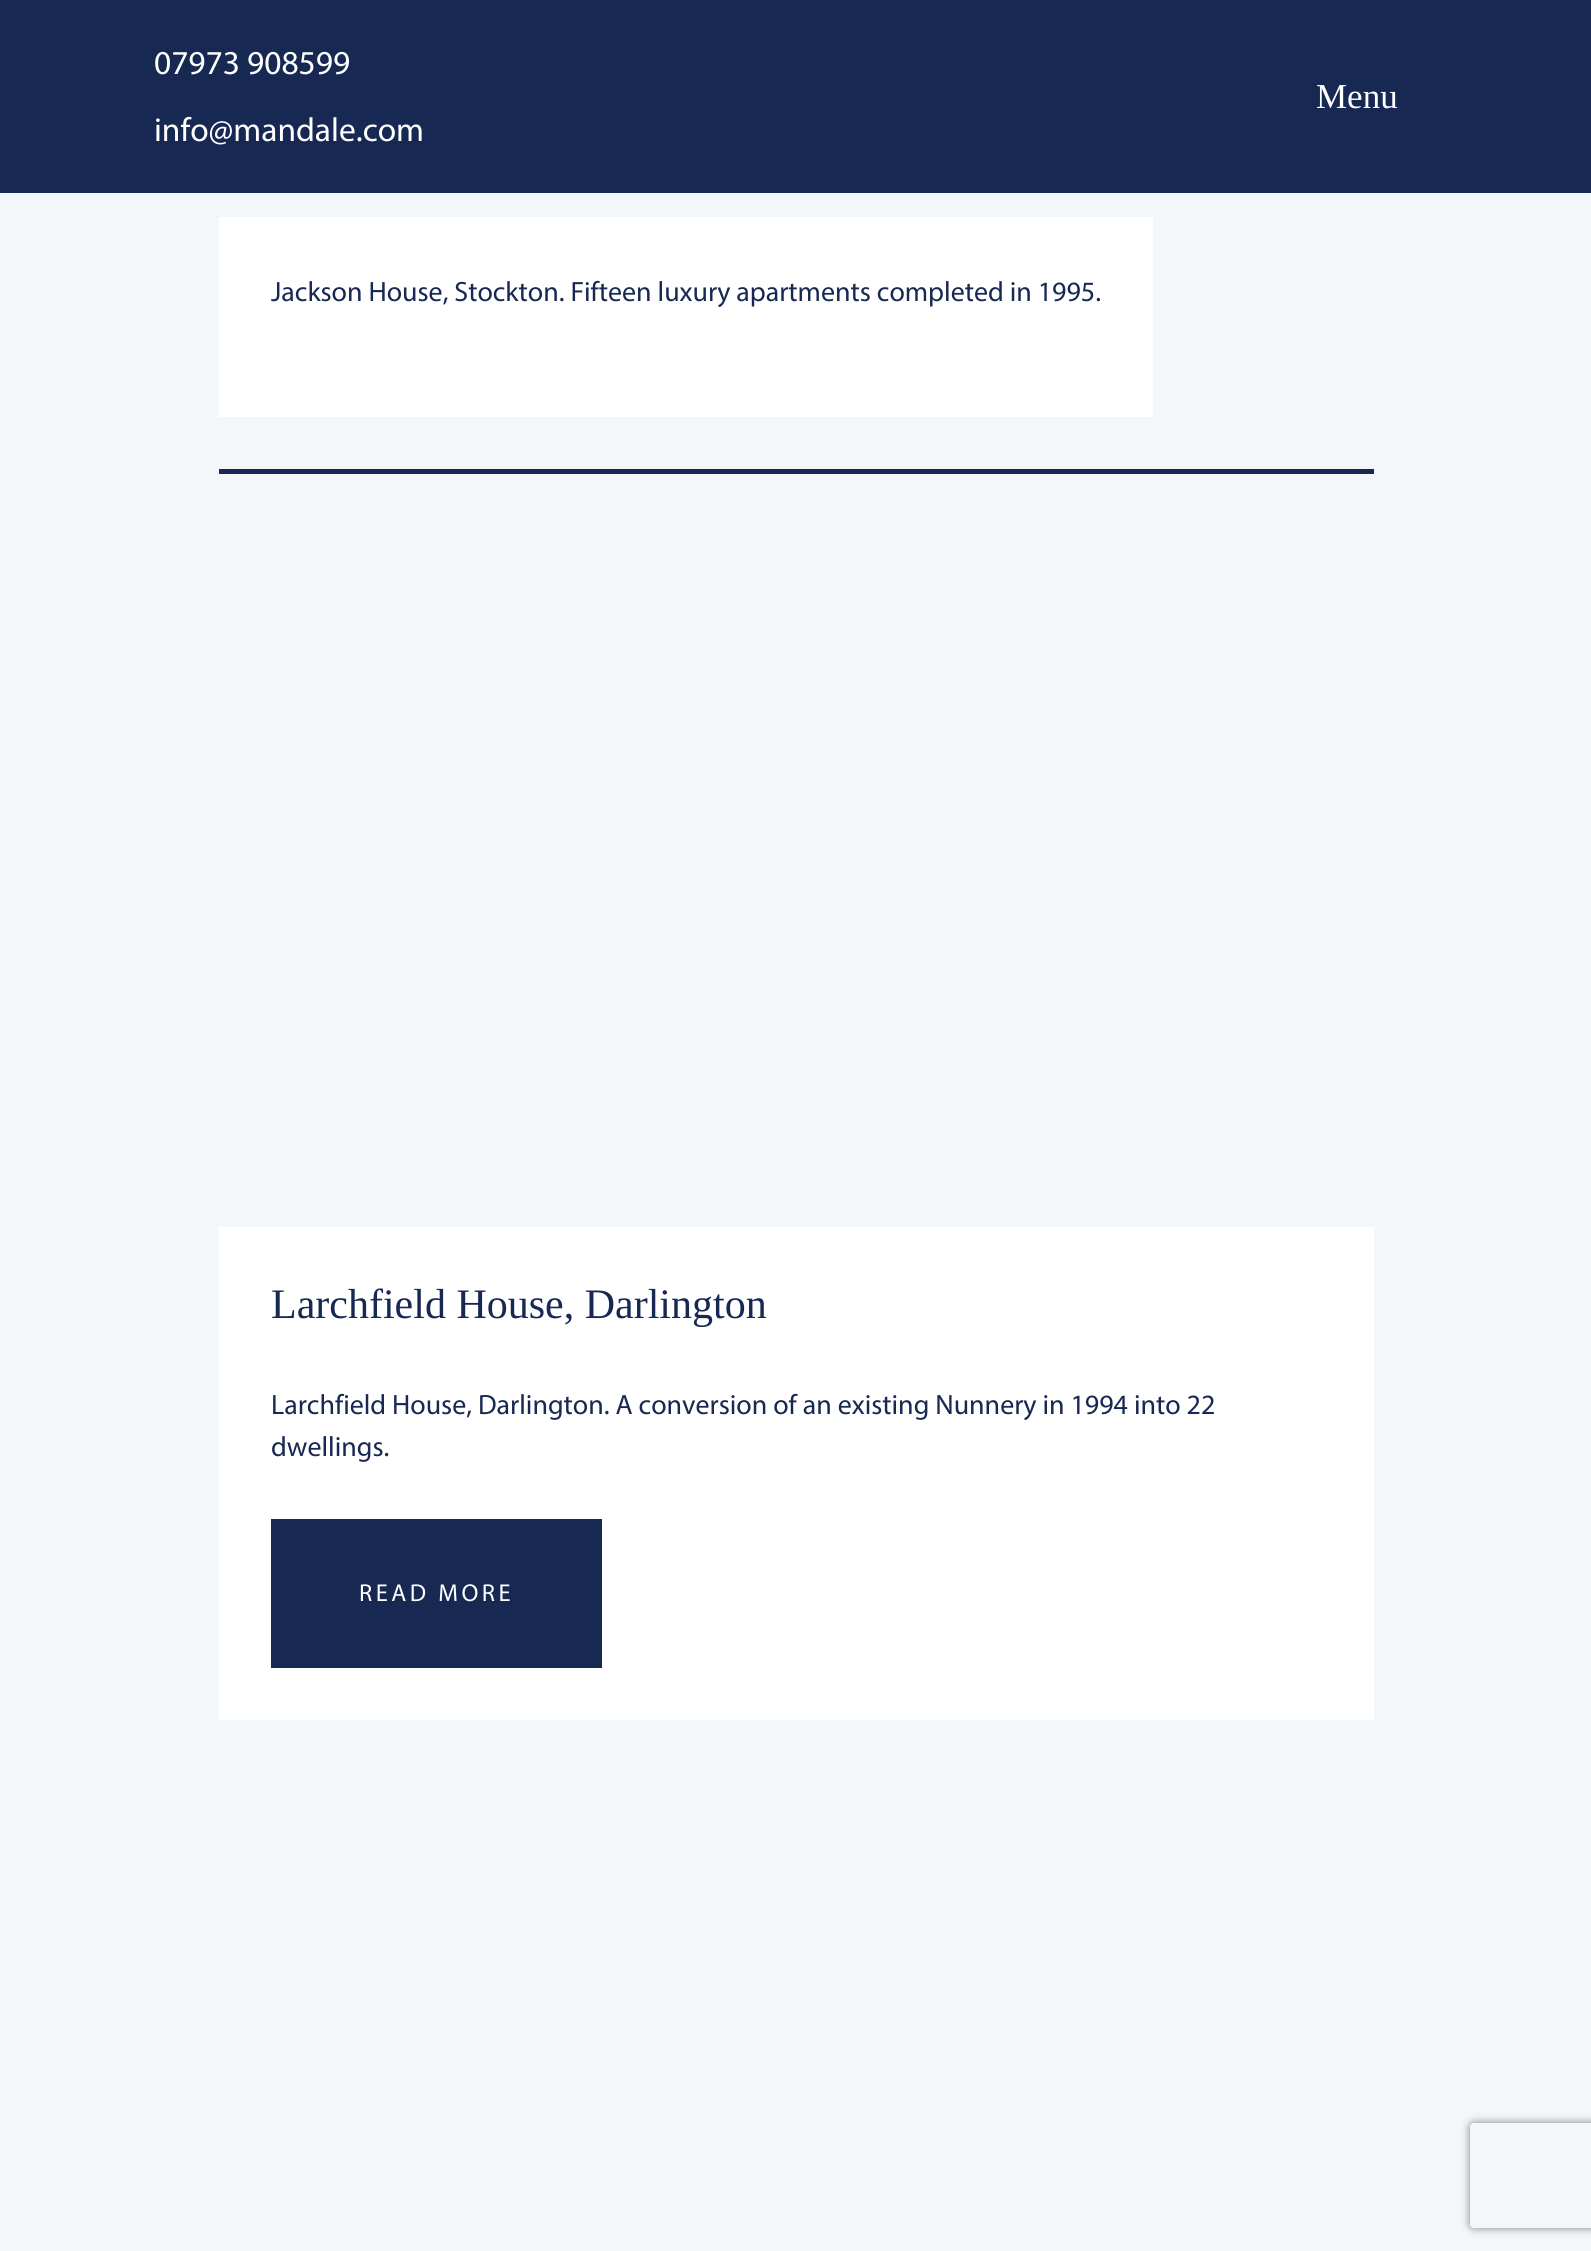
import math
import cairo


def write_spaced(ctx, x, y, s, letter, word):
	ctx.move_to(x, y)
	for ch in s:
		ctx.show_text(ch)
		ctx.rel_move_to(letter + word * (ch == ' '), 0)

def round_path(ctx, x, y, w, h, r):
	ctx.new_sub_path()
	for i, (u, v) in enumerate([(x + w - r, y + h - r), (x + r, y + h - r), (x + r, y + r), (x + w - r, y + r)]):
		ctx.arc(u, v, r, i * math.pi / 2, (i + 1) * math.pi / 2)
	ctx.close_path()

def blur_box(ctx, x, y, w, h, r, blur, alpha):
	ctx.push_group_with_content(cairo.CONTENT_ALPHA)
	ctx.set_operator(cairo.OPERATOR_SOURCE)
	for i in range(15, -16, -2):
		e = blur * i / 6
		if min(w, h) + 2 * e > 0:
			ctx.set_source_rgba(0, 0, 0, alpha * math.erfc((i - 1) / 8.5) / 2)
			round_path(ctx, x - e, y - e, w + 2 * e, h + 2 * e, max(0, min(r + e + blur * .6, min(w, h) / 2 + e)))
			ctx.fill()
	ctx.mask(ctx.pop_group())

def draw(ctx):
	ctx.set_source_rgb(0.957, 0.965, 0.973)
	ctx.paint()
	ctx.set_source_rgb(0.09, 0.157, 0.322)
	ctx.rectangle(0, 0, 1591, 193)
	ctx.fill()
	ctx.select_font_face('Myriad')
	ctx.set_font_size(33.5)
	ctx.set_source_rgb(1, 1, 1)
	ctx.move_to(154, 74)
	ctx.show_text('07973 908599')
	ctx.move_to(154, 141)
	ctx.show_text('info@mandale.com')
	ctx.select_font_face('Liberation Serif')
	ctx.set_font_size(35)
	ctx.move_to(1316, 108)
	ctx.show_text('Menu')
	ctx.rectangle(219, 217, 934, 200)
	ctx.fill()
	ctx.select_font_face('Myriad')
	ctx.set_font_size(28)
	ctx.set_source_rgb(0.09, 0.157, 0.322)
	ctx.move_to(271, 301)
	ctx.show_text('Jackson House, Stockton. Fifteen luxury apartments completed in 1995.')
	ctx.rectangle(219, 469, 1155, 5)
	ctx.fill()
	ctx.set_source_rgb(1, 1, 1)
	ctx.rectangle(219, 1227, 1155, 493)
	ctx.fill()
	ctx.select_font_face('Liberation Serif')
	ctx.set_font_size(42)
	ctx.set_source_rgb(0.09, 0.157, 0.322)
	ctx.move_to(271, 1318)
	ctx.show_text('Larchfield House, Darlington')
	ctx.select_font_face('Myriad')
	ctx.set_font_size(28)
	ctx.move_to(271, 1414)
	ctx.show_text('Larchfield House, Darlington. A conversion of an existing Nunnery in 1994 into 22')
	ctx.move_to(271, 1456)
	ctx.show_text('dwellings.')
	ctx.rectangle(271, 1519, 331, 149)
	ctx.fill()
	ctx.set_font_size(24.5)
	ctx.set_source_rgb(1, 1, 1)
	write_spaced(ctx, 359, 1601, 'READ MORE', 3.5, 0)
	ctx.save()
	ctx.set_fill_rule(cairo.FILL_RULE_EVEN_ODD)
	ctx.new_path()
	ctx.move_to(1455, 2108)
	ctx.line_to(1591, 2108)
	ctx.line_to(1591, 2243)
	ctx.line_to(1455, 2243)
	ctx.close_path()
	ctx.move_to(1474, 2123)
	ctx.line_to(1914, 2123)
	ctx.curve_to(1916, 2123, 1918, 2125, 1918, 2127)
	ctx.line_to(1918, 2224)
	ctx.curve_to(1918, 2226, 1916, 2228, 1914, 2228)
	ctx.line_to(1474, 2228)
	ctx.curve_to(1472, 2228, 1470, 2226, 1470, 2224)
	ctx.line_to(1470, 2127)
	ctx.curve_to(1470, 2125, 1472, 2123, 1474, 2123)
	ctx.close_path()
	ctx.clip()
	ctx.set_source_rgb(0.502, 0.502, 0.502)
	blur_box(ctx, 1470, 2123, 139, 105, 4, 4.5, 1)
	ctx.restore()


surface = cairo.ImageSurface(cairo.FORMAT_RGB24, 1591, 2251)
ctx = cairo.Context(surface)
options = cairo.FontOptions()
options.set_hint_metrics(cairo.HINT_METRICS_OFF)
options.set_hint_style(cairo.HINT_STYLE_NONE)
ctx.set_font_options(options)
ctx.set_miter_limit(4)
draw(ctx)
surface.write_to_png('image.png')
